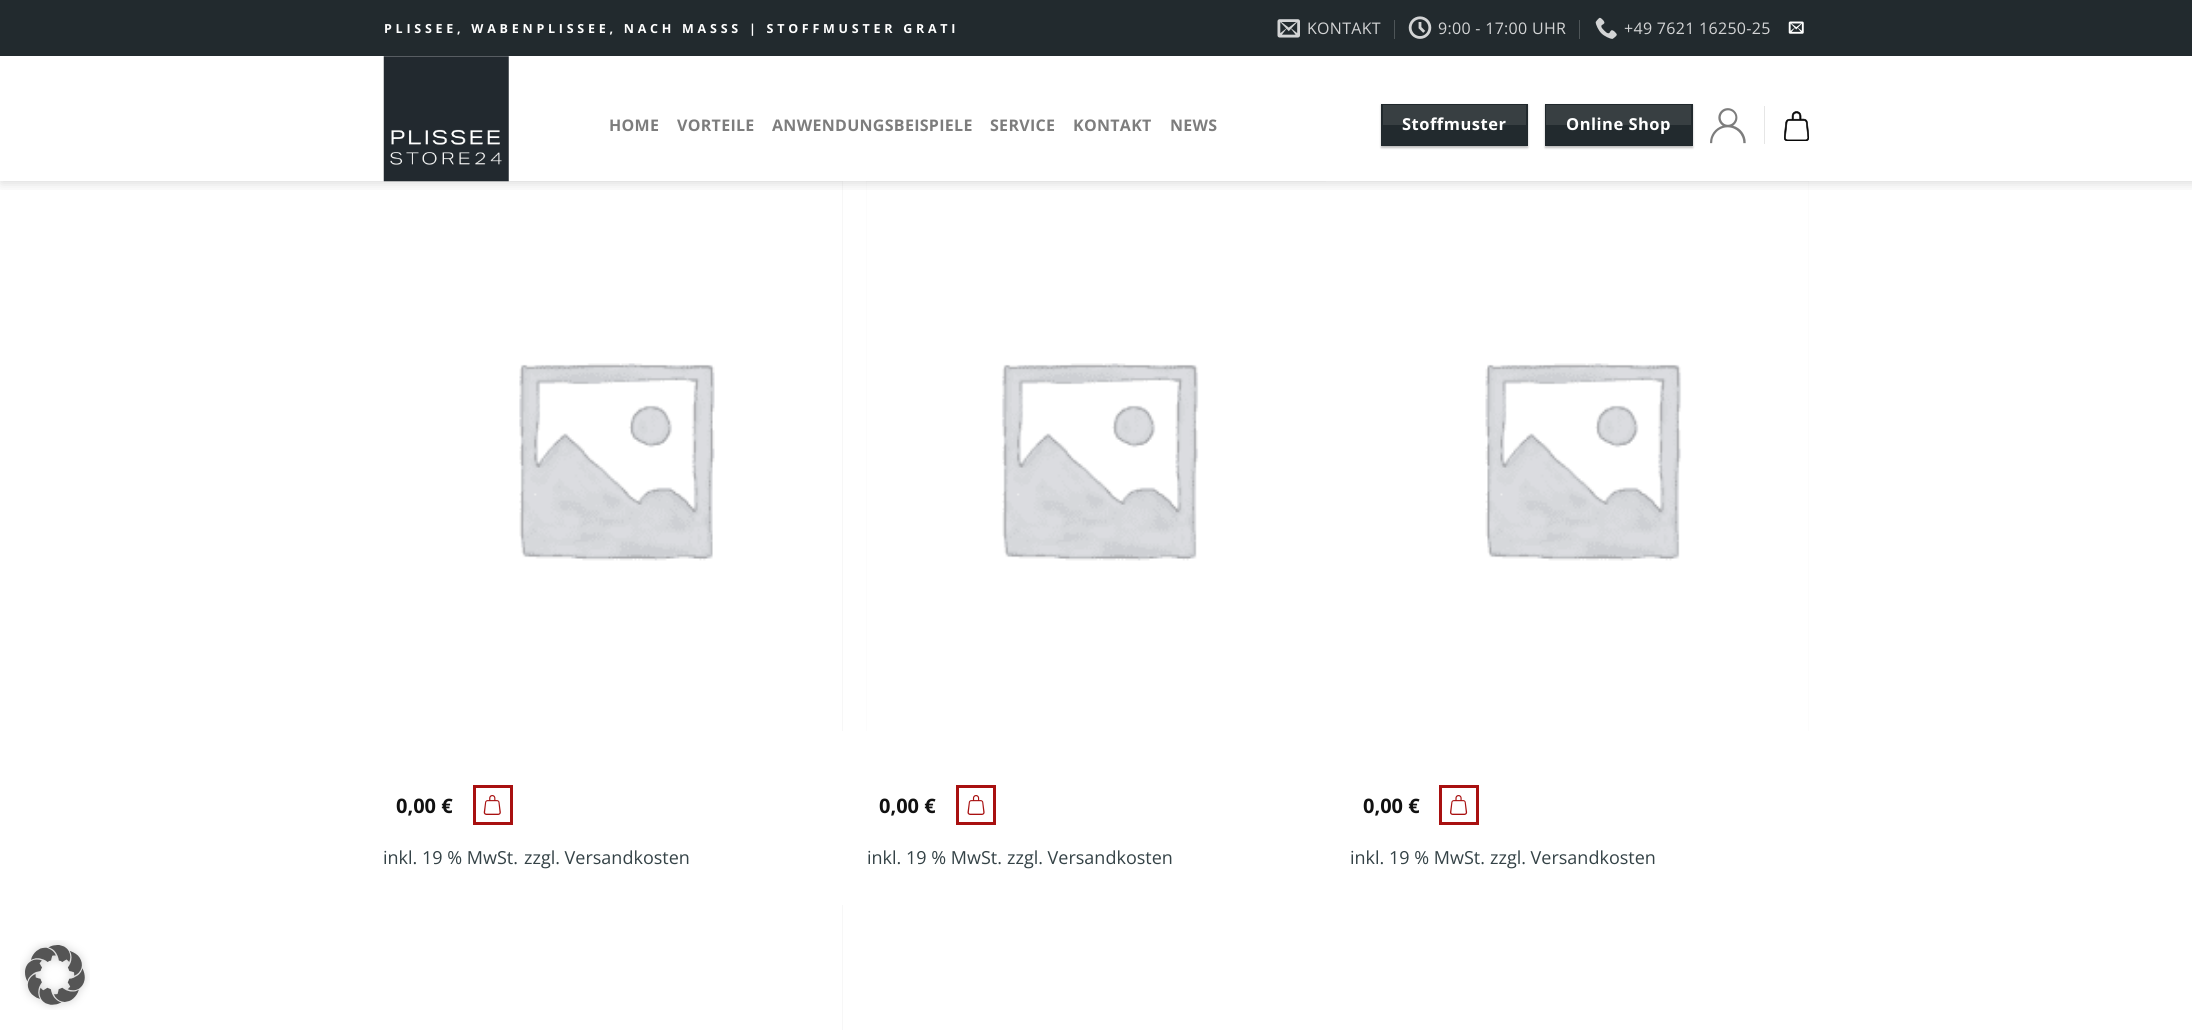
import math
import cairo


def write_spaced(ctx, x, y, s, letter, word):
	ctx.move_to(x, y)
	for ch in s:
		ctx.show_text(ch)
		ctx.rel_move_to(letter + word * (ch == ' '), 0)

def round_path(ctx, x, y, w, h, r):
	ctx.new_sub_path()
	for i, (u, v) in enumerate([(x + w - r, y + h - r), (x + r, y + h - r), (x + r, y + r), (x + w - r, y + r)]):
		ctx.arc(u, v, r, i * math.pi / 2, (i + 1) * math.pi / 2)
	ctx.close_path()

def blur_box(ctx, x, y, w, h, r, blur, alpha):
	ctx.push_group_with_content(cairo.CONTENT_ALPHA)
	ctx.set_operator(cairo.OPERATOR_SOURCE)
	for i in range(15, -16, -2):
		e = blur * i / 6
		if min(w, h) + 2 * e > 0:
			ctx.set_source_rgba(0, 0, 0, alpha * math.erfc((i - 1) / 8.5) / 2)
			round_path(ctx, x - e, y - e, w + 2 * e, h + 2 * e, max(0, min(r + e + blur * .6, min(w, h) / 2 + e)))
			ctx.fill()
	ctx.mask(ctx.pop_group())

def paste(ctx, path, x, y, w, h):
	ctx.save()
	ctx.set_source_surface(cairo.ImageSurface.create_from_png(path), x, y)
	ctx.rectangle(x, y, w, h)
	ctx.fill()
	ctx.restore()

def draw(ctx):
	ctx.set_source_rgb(1, 1, 1)
	ctx.paint()
	ctx.set_source_rgb(0.965, 0.965, 0.965)
	ctx.rectangle(384, 181, 459, 550)
	ctx.fill()
	paste(ctx, 'media/8.png', 384, 181, 458, 550)
	ctx.rectangle(866, 181, 460, 550)
	ctx.fill()
	paste(ctx, 'media/10.png', 866, 181, 460, 550)
	ctx.rectangle(1350, 181, 459, 550)
	ctx.fill()
	paste(ctx, 'media/12.png', 1350, 181, 459, 550)
	ctx.save()
	ctx.rectangle(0, 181, 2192, 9)
	ctx.clip()
	ctx.set_source_rgb(0, 0, 0)
	blur_box(ctx, 1, 1, 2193, 182, 0, 6, 0.15)
	ctx.restore()
	ctx.set_source_rgb(0.133, 0.165, 0.18)
	ctx.rectangle(0, 0, 2192, 56)
	ctx.fill()
	ctx.select_font_face('Open Sans', cairo.FONT_SLANT_NORMAL, cairo.FONT_WEIGHT_BOLD)
	ctx.set_font_size(12.5)
	ctx.set_source_rgb(1, 1, 1)
	write_spaced(ctx, 384, 33, 'PLISSEE, WABENPLISSEE, NACH MASSS | STOFFMUSTER GRATI', 3.75, 0)
	paste(ctx, 'media/1.png', 1277, 19, 23, 19)
	ctx.select_font_face('Open Sans')
	ctx.set_font_size(16)
	ctx.set_source_rgb(0.827, 0.831, 0.835)
	write_spaced(ctx, 1307, 34, 'KONTAKT', 0.3, 0)
	ctx.set_source_rgb(0.306, 0.333, 0.345)
	ctx.rectangle(1394, 20, 1, 19)
	ctx.fill()
	paste(ctx, 'media/2.png', 1408, 16, 24, 23)
	ctx.set_source_rgb(0.827, 0.831, 0.835)
	write_spaced(ctx, 1438, 34, '9:00 - 17:00 UHR', 0.3, 0)
	ctx.set_source_rgb(0.306, 0.333, 0.345)
	ctx.rectangle(1579, 20, 1, 19)
	ctx.fill()
	paste(ctx, 'media/3.png', 1595, 17, 22, 22)
	ctx.set_source_rgb(0.827, 0.831, 0.835)
	write_spaced(ctx, 1624, 34, '+49 7621 16250-25', 0.3, 0)
	paste(ctx, 'media/4.png', 1788, 21, 16, 13)
	paste(ctx, 'media/5.png', 383, 56, 126, 126)
	ctx.select_font_face('Open Sans', cairo.FONT_SLANT_NORMAL, cairo.FONT_WEIGHT_BOLD)
	ctx.set_source_rgb(0.49, 0.49, 0.49)
	for x, y, s in [
		(609, 131, 'HOME'),
		(677, 131, 'VORTEILE'),
		(772, 131, 'ANWENDUNGSBEISPIELE'),
		(990, 131, 'SERVICE'),
		(1073, 131, 'KONTAKT'),
		(1170, 131, 'NEWS'),
	]:
		write_spaced(ctx, x, y, s, 0.3, 0)
	ctx.set_source_rgb(0, 0, 0)
	blur_box(ctx, 1381, 105, 147, 43, 0, 1, 0.24)
	blur_box(ctx, 1384, 108, 141, 37, 0, 2, 0.12)
	ctx.set_source_rgb(0.133, 0.165, 0.18)
	ctx.rectangle(1381.5, 104.5, 146, 41)
	ctx.fill_preserve()
	ctx.set_source_rgb(0.125, 0.157, 0.173)
	ctx.set_line_width(1)
	ctx.stroke()
	ctx.set_source_rgba(1, 1, 1, 0.1)
	ctx.rectangle(1383, 105, 143, 20)
	ctx.fill()
	ctx.set_font_size(16.5)
	ctx.set_source_rgb(1, 1, 1)
	write_spaced(ctx, 1402, 130, 'Stoffmuster', 0.5, 0)
	ctx.set_source_rgb(0, 0, 0)
	blur_box(ctx, 1545, 105, 148, 43, 0, 1, 0.24)
	blur_box(ctx, 1548, 108, 142, 37, 0, 2, 0.12)
	ctx.set_source_rgb(0.133, 0.165, 0.18)
	ctx.rectangle(1545.5, 104.5, 147, 41)
	ctx.fill_preserve()
	ctx.set_source_rgb(0.125, 0.157, 0.173)
	ctx.stroke()
	ctx.set_source_rgba(1, 1, 1, 0.1)
	ctx.rectangle(1546, 105, 145, 20)
	ctx.fill()
	ctx.set_source_rgb(1, 1, 1)
	write_spaced(ctx, 1566, 130, 'Online Shop', 0.5, 0)
	paste(ctx, 'media/6.png', 1710, 108, 36, 36)
	ctx.set_source_rgb(0.902, 0.902, 0.902)
	ctx.rectangle(1764, 106, 1, 38)
	ctx.fill()
	paste(ctx, 'media/7.png', 1784, 111, 25, 30)
	ctx.set_font_size(20)
	ctx.set_source_rgb(0.067, 0.067, 0.067)
	ctx.move_to(396, 813)
	ctx.show_text('0,00 €')
	ctx.rectangle(474.5, 786.5, 37, 37)
	ctx.set_source_rgb(0.659, 0.063, 0.063)
	ctx.set_line_width(3)
	ctx.stroke()
	paste(ctx, 'media/9.png', 483, 795, 18, 20)
	ctx.select_font_face('Open Sans')
	ctx.set_font_size(18)
	ctx.set_source_rgb(0.204, 0.259, 0.275)
	ctx.move_to(383, 864)
	ctx.show_text('inkl. 19 % MwSt.')
	ctx.move_to(524, 864)
	ctx.show_text('zzgl. Versandkosten')
	ctx.select_font_face('Open Sans', cairo.FONT_SLANT_NORMAL, cairo.FONT_WEIGHT_BOLD)
	ctx.set_font_size(20)
	ctx.set_source_rgb(0.067, 0.067, 0.067)
	ctx.move_to(879, 813)
	ctx.show_text('0,00 €')
	ctx.rectangle(957.5, 786.5, 37, 37)
	ctx.set_source_rgb(0.659, 0.063, 0.063)
	ctx.stroke()
	paste(ctx, 'media/11.png', 967, 795, 18, 20)
	ctx.select_font_face('Open Sans')
	ctx.set_font_size(18)
	ctx.set_source_rgb(0.204, 0.259, 0.275)
	ctx.move_to(867, 864)
	ctx.show_text('inkl. 19 % MwSt.')
	ctx.move_to(1007, 864)
	ctx.show_text('zzgl. Versandkosten')
	ctx.select_font_face('Open Sans', cairo.FONT_SLANT_NORMAL, cairo.FONT_WEIGHT_BOLD)
	ctx.set_font_size(20)
	ctx.set_source_rgb(0.067, 0.067, 0.067)
	ctx.move_to(1363, 813)
	ctx.show_text('0,00 €')
	ctx.rectangle(1440.5, 786.5, 37, 37)
	ctx.set_source_rgb(0.659, 0.063, 0.063)
	ctx.stroke()
	paste(ctx, 'media/13.png', 1450, 795, 18, 20)
	ctx.select_font_face('Open Sans')
	ctx.set_font_size(18)
	ctx.set_source_rgb(0.204, 0.259, 0.275)
	ctx.move_to(1350, 864)
	ctx.show_text('inkl. 19 % MwSt.')
	ctx.move_to(1490, 864)
	ctx.show_text('zzgl. Versandkosten')
	ctx.set_source_rgb(0.965, 0.965, 0.965)
	ctx.rectangle(842, 905, 1, 125)
	ctx.fill()
	paste(ctx, 'media/14.png', 20, 940, 70, 70)


surface = cairo.ImageSurface(cairo.FORMAT_RGB24, 2192, 1030)
ctx = cairo.Context(surface)
options = cairo.FontOptions()
options.set_hint_metrics(cairo.HINT_METRICS_OFF)
options.set_hint_style(cairo.HINT_STYLE_NONE)
ctx.set_font_options(options)
ctx.set_miter_limit(4)
draw(ctx)
surface.write_to_png('image.png')
